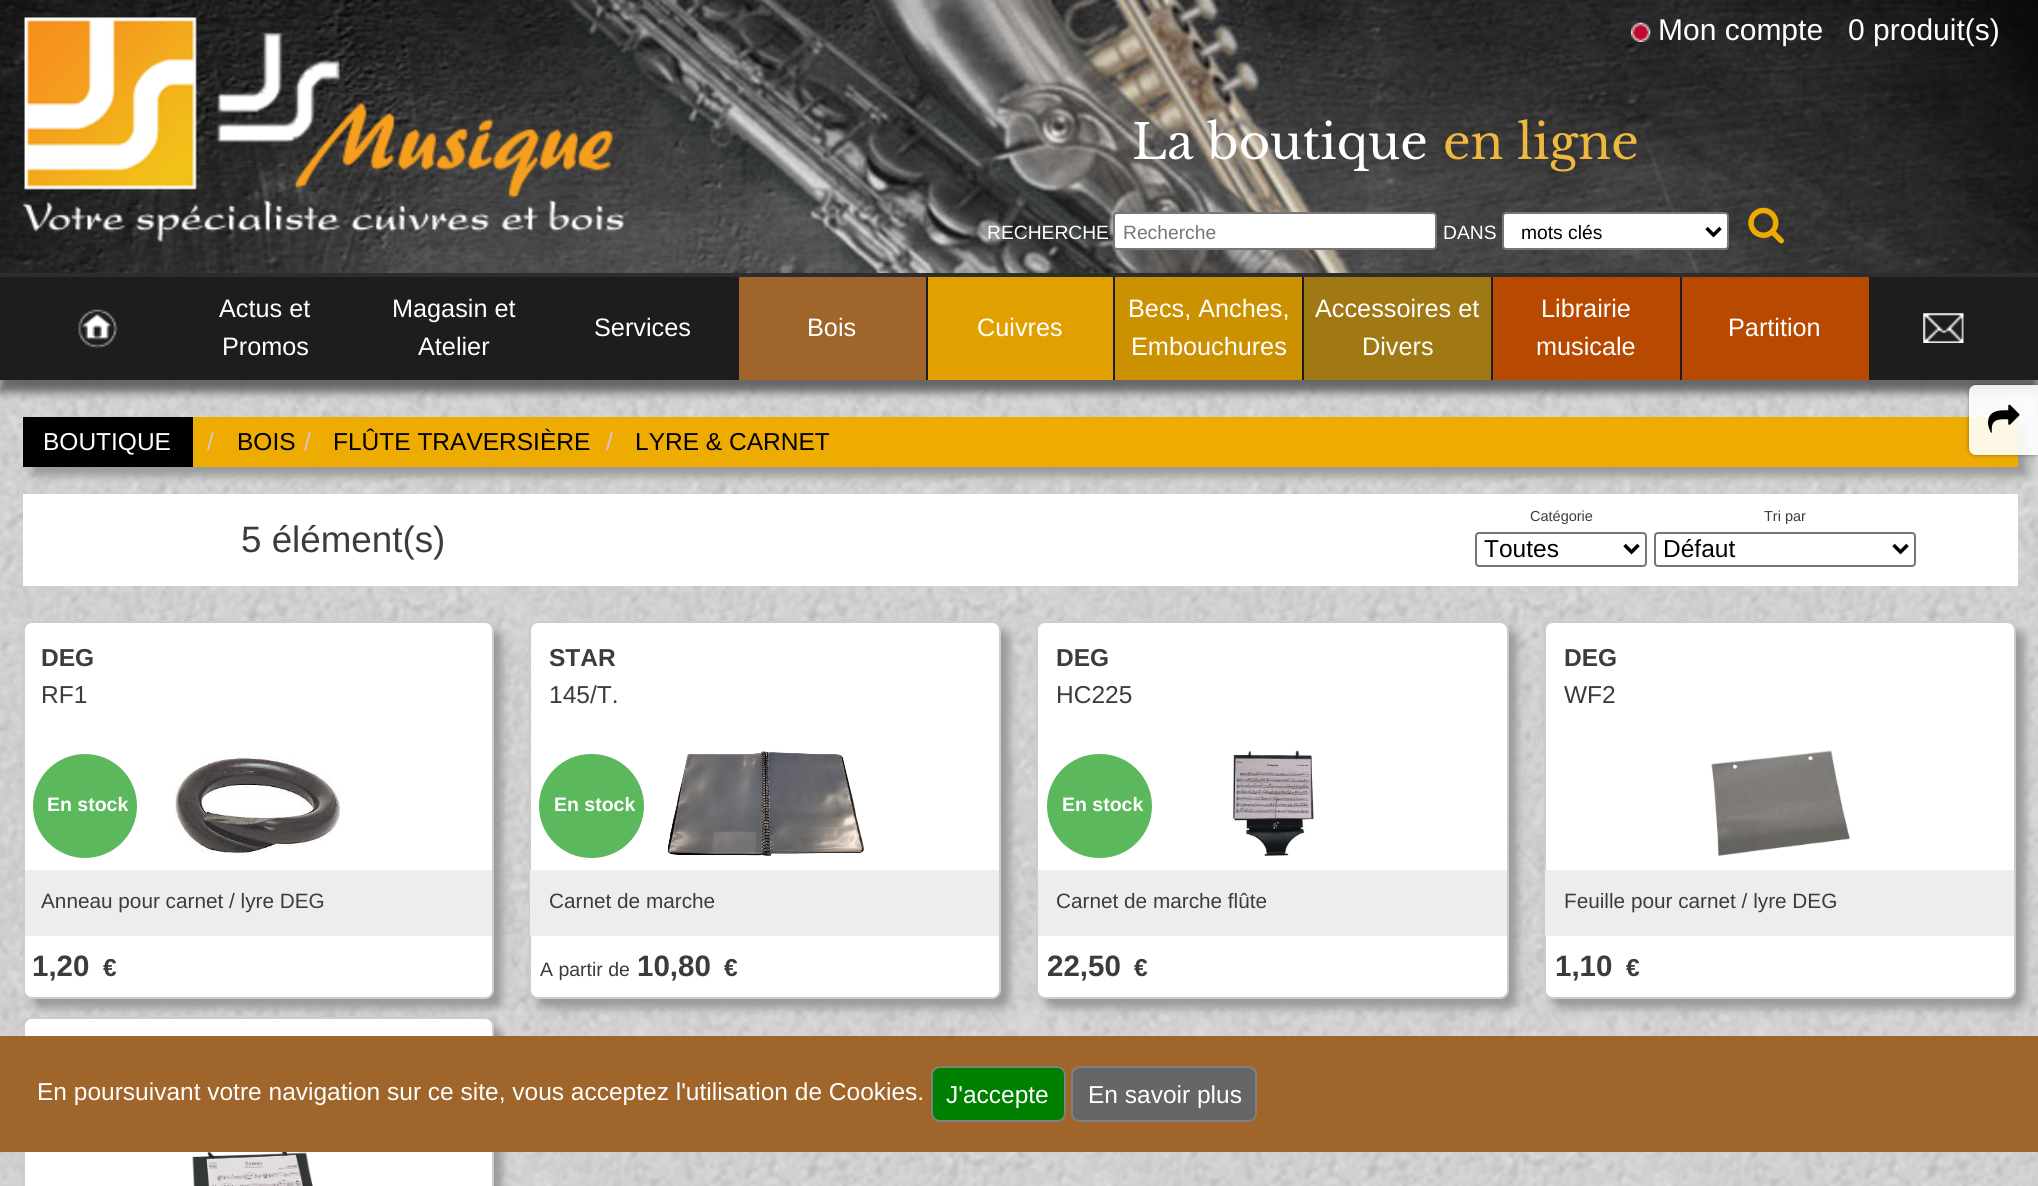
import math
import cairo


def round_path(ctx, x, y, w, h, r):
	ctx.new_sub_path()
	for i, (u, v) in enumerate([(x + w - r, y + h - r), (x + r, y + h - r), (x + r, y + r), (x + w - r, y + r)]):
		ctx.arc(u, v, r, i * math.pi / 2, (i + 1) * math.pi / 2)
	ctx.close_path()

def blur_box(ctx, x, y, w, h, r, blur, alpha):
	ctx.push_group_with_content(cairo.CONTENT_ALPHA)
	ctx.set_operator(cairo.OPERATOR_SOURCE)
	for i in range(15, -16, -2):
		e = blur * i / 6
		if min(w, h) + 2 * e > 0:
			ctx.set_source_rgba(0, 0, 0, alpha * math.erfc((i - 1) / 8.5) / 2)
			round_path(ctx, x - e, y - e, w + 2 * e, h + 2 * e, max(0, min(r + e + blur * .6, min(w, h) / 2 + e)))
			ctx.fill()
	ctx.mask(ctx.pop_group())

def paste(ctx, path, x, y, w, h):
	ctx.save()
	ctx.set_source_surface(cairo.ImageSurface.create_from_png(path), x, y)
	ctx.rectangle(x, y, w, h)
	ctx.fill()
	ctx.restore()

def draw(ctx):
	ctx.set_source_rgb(0.18, 0.176, 0.173)
	ctx.paint()
	paste(ctx, 'media/1.png', 0, 0, 2038, 273)
	paste(ctx, 'media/2.png', 22, 17, 602, 225)
	paste(ctx, 'media/3.png', 1631, 22, 20, 20)
	ctx.select_font_face('Liberation Sans')
	ctx.set_font_size(30)
	ctx.set_source_rgb(1, 1, 1)
	ctx.move_to(1658, 40)
	ctx.show_text('Mon compte')
	ctx.move_to(1848, 40)
	ctx.show_text('0 produit(s)')
	ctx.select_font_face('Libre Baskerville')
	ctx.set_font_size(48)
	ctx.move_to(1132, 159)
	ctx.show_text('La boutique')
	ctx.set_source_rgb(0.945, 0.722, 0.243)
	ctx.move_to(1443, 159)
	ctx.show_text('en ligne')
	ctx.select_font_face('Liberation Sans')
	ctx.set_font_size(19.25)
	ctx.set_source_rgb(1, 1, 1)
	ctx.move_to(987, 239)
	ctx.show_text('RECHERCHE')
	round_path(ctx, 1114, 213, 322, 36, 3)
	ctx.fill_preserve()
	ctx.set_source_rgb(0.463, 0.463, 0.463)
	ctx.stroke()
	ctx.set_source_rgb(0.467, 0.467, 0.467)
	ctx.move_to(1123, 239)
	ctx.show_text('Recherche')
	ctx.set_source_rgb(1, 1, 1)
	ctx.move_to(1443, 239)
	ctx.show_text('DANS')
	round_path(ctx, 1503, 213, 225, 36, 3)
	ctx.fill_preserve()
	ctx.set_source_rgb(0.463, 0.463, 0.463)
	ctx.stroke()
	ctx.new_path()
	ctx.move_to(1706.5, 228)
	ctx.line_to(1713.5, 235)
	ctx.line_to(1720.5, 228)
	ctx.set_source_rgb(0, 0, 0)
	ctx.set_line_width(3.5)
	ctx.stroke()
	ctx.move_to(1521, 239)
	ctx.show_text('mots clés')
	paste(ctx, 'media/4.png', 1748, 207, 36, 37)
	paste(ctx, 'media/7.png', 0, 380, 2038, 806)
	ctx.set_source_rgb(0.4, 0.4, 0.4)
	blur_box(ctx, 0, 289, 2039, 103, 0, 4.5, 1)
	ctx.set_source_rgb(0.114, 0.114, 0.106)
	ctx.rectangle(0, 277, 2038, 103)
	ctx.fill()
	paste(ctx, 'media/5.png', 77, 309, 41, 40)
	ctx.set_font_size(25.25)
	ctx.set_source_rgb(1, 1, 1)
	for x, y, s in [
		(219, 317, 'Actus et'),
		(222, 355, 'Promos'),
		(392, 317, 'Magasin et'),
		(418, 355, 'Atelier'),
		(594, 336, 'Services'),
	]:
		ctx.move_to(x, y)
		ctx.show_text(s)
	ctx.set_source_rgb(0.624, 0.396, 0.165)
	ctx.rectangle(739, 277, 187, 103)
	ctx.fill()
	ctx.set_source_rgb(1, 1, 1)
	ctx.move_to(807, 336)
	ctx.show_text('Bois')
	ctx.set_source_rgb(0.882, 0.624, 0)
	ctx.rectangle(928, 277, 185, 103)
	ctx.fill()
	ctx.set_source_rgb(1, 1, 1)
	ctx.move_to(977, 336)
	ctx.show_text('Cuivres')
	ctx.set_source_rgb(0.796, 0.569, 0)
	ctx.rectangle(1115, 277, 187, 103)
	ctx.fill()
	ctx.set_source_rgb(1, 1, 1)
	ctx.move_to(1128, 317)
	ctx.show_text('Becs, Anches,')
	ctx.move_to(1131, 355)
	ctx.show_text('Embouchures')
	ctx.set_source_rgb(0.631, 0.475, 0.082)
	ctx.rectangle(1304, 277, 187, 103)
	ctx.fill()
	ctx.set_source_rgb(1, 1, 1)
	ctx.move_to(1315, 317)
	ctx.show_text('Accessoires et')
	ctx.move_to(1362, 355)
	ctx.show_text('Divers')
	ctx.set_source_rgb(0.722, 0.286, 0)
	ctx.rectangle(1493, 277, 187, 103)
	ctx.fill()
	ctx.set_source_rgb(1, 1, 1)
	ctx.move_to(1541, 317)
	ctx.show_text('Librairie')
	ctx.move_to(1536, 355)
	ctx.show_text('musicale')
	ctx.set_source_rgb(0.722, 0.286, 0)
	ctx.rectangle(1682, 277, 187, 103)
	ctx.fill()
	ctx.set_source_rgb(1, 1, 1)
	ctx.move_to(1728, 336)
	ctx.show_text('Partition')
	paste(ctx, 'media/6.png', 1923, 313, 41, 30)
	ctx.set_source_rgb(0.6, 0.6, 0.6)
	blur_box(ctx, 32, 425, 1995, 51, 0, 4.5, 1)
	ctx.set_source_rgb(0.933, 0.671, 0.008)
	ctx.rectangle(193, 417, 1825, 50)
	ctx.fill()
	ctx.set_source_rgb(0, 0, 0)
	ctx.rectangle(23, 417, 170, 50)
	ctx.fill()
	ctx.set_font_size(24.5)
	ctx.set_source_rgb(1, 1, 1)
	ctx.move_to(43, 450)
	ctx.show_text('BOUTIQUE')
	ctx.set_source_rgb(0.8, 0.8, 0.8)
	ctx.move_to(207, 450)
	ctx.show_text('/')
	ctx.set_source_rgb(0, 0, 0)
	ctx.move_to(237, 450)
	ctx.show_text('BOIS')
	ctx.set_source_rgb(0.8, 0.8, 0.8)
	ctx.move_to(304, 450)
	ctx.show_text('/')
	ctx.set_source_rgb(0, 0, 0)
	ctx.move_to(333, 450)
	ctx.show_text('FLÛTE TRAVERSIÈRE')
	ctx.set_source_rgb(0.8, 0.8, 0.8)
	ctx.move_to(606, 450)
	ctx.show_text('/')
	ctx.set_source_rgb(0, 0, 0)
	ctx.move_to(635, 450)
	ctx.show_text('LYRE & CARNET')
	ctx.set_source_rgb(1, 1, 1)
	ctx.rectangle(23, 494, 1995, 92)
	ctx.fill()
	ctx.set_font_size(36.75)
	ctx.set_source_rgb(0.235, 0.235, 0.231)
	ctx.move_to(241, 552)
	ctx.show_text('5 élément(s)')
	ctx.set_font_size(14.5)
	ctx.move_to(1530, 521)
	ctx.show_text('Catégorie')
	round_path(ctx, 1476, 533, 170, 33, 3)
	ctx.set_source_rgb(0.463, 0.463, 0.463)
	ctx.set_line_width(2)
	ctx.stroke()
	ctx.new_path()
	ctx.move_to(1624.5, 545)
	ctx.line_to(1631.5, 552)
	ctx.line_to(1638.5, 545)
	ctx.set_source_rgb(0, 0, 0)
	ctx.set_line_width(3.5)
	ctx.stroke()
	ctx.set_font_size(24.5)
	ctx.move_to(1484, 557)
	ctx.show_text('Toutes')
	ctx.set_font_size(14.5)
	ctx.set_source_rgb(0.235, 0.235, 0.231)
	ctx.move_to(1764, 521)
	ctx.show_text('Tri par')
	round_path(ctx, 1655, 533, 260, 33, 3)
	ctx.set_source_rgb(0.463, 0.463, 0.463)
	ctx.set_line_width(2)
	ctx.stroke()
	ctx.new_path()
	ctx.move_to(1893.5, 545)
	ctx.line_to(1900.5, 552)
	ctx.line_to(1907.5, 545)
	ctx.set_source_rgb(0, 0, 0)
	ctx.set_line_width(3.5)
	ctx.stroke()
	ctx.set_font_size(24.5)
	ctx.move_to(1663, 557)
	ctx.show_text('Défaut')
	ctx.set_source_rgb(0.6, 0.6, 0.6)
	blur_box(ctx, 32, 630, 470, 378, 9, 4.5, 1)
	ctx.set_source_rgb(1, 1, 1)
	round_path(ctx, 24, 622, 469, 376, 8)
	ctx.fill_preserve()
	ctx.set_source_rgb(0.8, 0.8, 0.8)
	ctx.set_line_width(2)
	ctx.stroke()
	ctx.select_font_face('Liberation Sans', cairo.FONT_SLANT_NORMAL, cairo.FONT_WEIGHT_BOLD)
	ctx.set_source_rgb(0.235, 0.235, 0.231)
	ctx.move_to(41, 666)
	ctx.show_text('DEG')
	ctx.select_font_face('Liberation Sans')
	ctx.move_to(41, 703)
	ctx.show_text('RF1')
	ctx.set_source_rgb(0.361, 0.722, 0.361)
	ctx.new_path()
	ctx.arc(85, 806, 52, 0, 2 * math.pi)
	ctx.fill()
	ctx.select_font_face('Liberation Sans', cairo.FONT_SLANT_NORMAL, cairo.FONT_WEIGHT_BOLD)
	ctx.set_font_size(19.5)
	ctx.set_source_rgb(1, 1, 1)
	ctx.move_to(47, 811)
	ctx.show_text('En stock')
	ctx.set_font_size(29.5)
	ctx.set_source_rgb(0.235, 0.235, 0.231)
	ctx.move_to(32, 976)
	ctx.show_text('1,20')
	ctx.set_font_size(24.5)
	ctx.move_to(103, 976)
	ctx.show_text('€')
	paste(ctx, 'media/8.png', 175, 756, 165, 100)
	ctx.set_source_rgb(0.929, 0.929, 0.929)
	ctx.rectangle(25, 870, 467, 66)
	ctx.fill()
	ctx.select_font_face('Liberation Sans')
	ctx.set_font_size(20.75)
	ctx.set_source_rgb(0.235, 0.235, 0.231)
	ctx.move_to(41, 908)
	ctx.show_text('Anneau pour carnet / lyre DEG')
	ctx.set_source_rgb(0.6, 0.6, 0.6)
	blur_box(ctx, 537, 630, 473, 378, 9, 4.5, 1)
	ctx.set_source_rgb(1, 1, 1)
	round_path(ctx, 530, 622, 470, 376, 8)
	ctx.fill_preserve()
	ctx.set_source_rgb(0.8, 0.8, 0.8)
	ctx.stroke()
	ctx.select_font_face('Liberation Sans', cairo.FONT_SLANT_NORMAL, cairo.FONT_WEIGHT_BOLD)
	ctx.set_font_size(24.5)
	ctx.set_source_rgb(0.235, 0.235, 0.231)
	ctx.move_to(549, 666)
	ctx.show_text('STAR')
	ctx.select_font_face('Liberation Sans')
	ctx.move_to(549, 703)
	ctx.show_text('145/T.')
	ctx.set_source_rgb(0.361, 0.722, 0.361)
	round_path(ctx, 539, 754, 105, 104, 52)
	ctx.fill()
	ctx.select_font_face('Liberation Sans', cairo.FONT_SLANT_NORMAL, cairo.FONT_WEIGHT_BOLD)
	ctx.set_font_size(19.5)
	ctx.set_source_rgb(1, 1, 1)
	ctx.move_to(554, 811)
	ctx.show_text('En stock')
	ctx.select_font_face('Liberation Sans')
	ctx.set_source_rgb(0.235, 0.235, 0.231)
	ctx.move_to(540, 976)
	ctx.show_text('A partir de')
	ctx.select_font_face('Liberation Sans', cairo.FONT_SLANT_NORMAL, cairo.FONT_WEIGHT_BOLD)
	ctx.set_font_size(29.5)
	ctx.move_to(637, 976)
	ctx.show_text('10,80')
	ctx.set_font_size(24.5)
	ctx.move_to(724, 976)
	ctx.show_text('€')
	paste(ctx, 'media/9.png', 667, 751, 197, 105)
	ctx.set_source_rgb(0.929, 0.929, 0.929)
	ctx.rectangle(530, 870, 469, 66)
	ctx.fill()
	ctx.select_font_face('Liberation Sans')
	ctx.set_font_size(20.75)
	ctx.set_source_rgb(0.235, 0.235, 0.231)
	ctx.move_to(549, 908)
	ctx.show_text('Carnet de marche')
	ctx.set_source_rgb(0.6, 0.6, 0.6)
	blur_box(ctx, 1045, 630, 472, 378, 9, 4.5, 1)
	ctx.set_source_rgb(1, 1, 1)
	round_path(ctx, 1037, 622, 471, 376, 8)
	ctx.fill_preserve()
	ctx.set_source_rgb(0.8, 0.8, 0.8)
	ctx.stroke()
	ctx.select_font_face('Liberation Sans', cairo.FONT_SLANT_NORMAL, cairo.FONT_WEIGHT_BOLD)
	ctx.set_font_size(24.5)
	ctx.set_source_rgb(0.235, 0.235, 0.231)
	ctx.move_to(1056, 666)
	ctx.show_text('DEG')
	ctx.select_font_face('Liberation Sans')
	ctx.move_to(1056, 703)
	ctx.show_text('HC225')
	ctx.set_source_rgb(0.361, 0.722, 0.361)
	round_path(ctx, 1047, 754, 105, 104, 52)
	ctx.fill()
	ctx.select_font_face('Liberation Sans', cairo.FONT_SLANT_NORMAL, cairo.FONT_WEIGHT_BOLD)
	ctx.set_font_size(19.5)
	ctx.set_source_rgb(1, 1, 1)
	ctx.move_to(1062, 811)
	ctx.show_text('En stock')
	ctx.set_font_size(29.5)
	ctx.set_source_rgb(0.235, 0.235, 0.231)
	ctx.move_to(1047, 976)
	ctx.show_text('22,50')
	ctx.set_font_size(24.5)
	ctx.move_to(1134, 976)
	ctx.show_text('€')
	paste(ctx, 'media/10.png', 1232, 750, 82, 106)
	ctx.set_source_rgb(0.929, 0.929, 0.929)
	ctx.rectangle(1038, 870, 469, 66)
	ctx.fill()
	ctx.select_font_face('Liberation Sans')
	ctx.set_font_size(20.75)
	ctx.set_source_rgb(0.235, 0.235, 0.231)
	ctx.move_to(1056, 908)
	ctx.show_text('Carnet de marche flûte')
	ctx.set_source_rgb(0.6, 0.6, 0.6)
	blur_box(ctx, 1552, 630, 473, 378, 9, 4.5, 1)
	ctx.set_source_rgb(1, 1, 1)
	round_path(ctx, 1545, 622, 470, 376, 8)
	ctx.fill_preserve()
	ctx.set_source_rgb(0.8, 0.8, 0.8)
	ctx.stroke()
	ctx.select_font_face('Liberation Sans', cairo.FONT_SLANT_NORMAL, cairo.FONT_WEIGHT_BOLD)
	ctx.set_font_size(24.5)
	ctx.set_source_rgb(0.235, 0.235, 0.231)
	ctx.move_to(1564, 666)
	ctx.show_text('DEG')
	ctx.select_font_face('Liberation Sans')
	ctx.move_to(1564, 703)
	ctx.show_text('WF2')
	paste(ctx, 'media/11.png', 1711, 750, 139, 106)
	ctx.set_source_rgb(0.929, 0.929, 0.929)
	ctx.rectangle(1545, 870, 469, 66)
	ctx.fill()
	ctx.set_font_size(20.75)
	ctx.set_source_rgb(0.235, 0.235, 0.231)
	ctx.move_to(1564, 908)
	ctx.show_text('Feuille pour carnet / lyre DEG')
	ctx.select_font_face('Liberation Sans', cairo.FONT_SLANT_NORMAL, cairo.FONT_WEIGHT_BOLD)
	ctx.set_font_size(29.5)
	ctx.move_to(1555, 976)
	ctx.show_text('1,10')
	ctx.set_font_size(24.5)
	ctx.move_to(1626, 976)
	ctx.show_text('€')
	ctx.set_source_rgb(0.6, 0.6, 0.6)
	blur_box(ctx, 32, 1026, 470, 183, 9, 4.5, 1)
	ctx.set_source_rgb(1, 1, 1)
	round_path(ctx, 24, 1018, 469, 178, 8)
	ctx.fill_preserve()
	ctx.set_source_rgb(0.8, 0.8, 0.8)
	ctx.stroke()
	paste(ctx, 'media/12.png', 192, 1152, 121, 34)
	ctx.set_source_rgb(0, 0, 0)
	blur_box(ctx, 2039, 385, 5, 70, 0, 2, 0.4)
	ctx.save()
	ctx.set_fill_rule(cairo.FILL_RULE_EVEN_ODD)
	ctx.new_path()
	ctx.move_to(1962, 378)
	ctx.line_to(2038, 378)
	ctx.line_to(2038, 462)
	ctx.line_to(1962, 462)
	ctx.close_path()
	ctx.move_to(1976, 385)
	ctx.line_to(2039, 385)
	ctx.line_to(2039, 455)
	ctx.line_to(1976, 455)
	ctx.curve_to(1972, 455, 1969, 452, 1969, 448)
	ctx.line_to(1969, 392)
	ctx.curve_to(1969, 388, 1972, 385, 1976, 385)
	ctx.close_path()
	ctx.clip()
	blur_box(ctx, 1969, 385, 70, 70, 7, 2, 0.4)
	ctx.restore()
	ctx.set_source_rgba(1, 1, 1, 0.9)
	ctx.new_path()
	ctx.move_to(1976, 385)
	ctx.line_to(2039, 385)
	ctx.line_to(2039, 455)
	ctx.line_to(1976, 455)
	ctx.curve_to(1972, 455, 1969, 452, 1969, 448)
	ctx.line_to(1969, 392)
	ctx.curve_to(1969, 388, 1972, 385, 1976, 385)
	ctx.close_path()
	ctx.fill()
	paste(ctx, 'media/13.png', 1988, 404, 32, 29)
	ctx.set_source_rgb(0.624, 0.396, 0.165)
	ctx.rectangle(0, 1036, 2038, 116)
	ctx.fill()
	ctx.select_font_face('Liberation Sans')
	ctx.set_source_rgb(1, 1, 1)
	ctx.move_to(37, 1100)
	ctx.show_text('En poursuivant votre navigation sur ce site, vous acceptez l\'utilisation de Cookies.')
	ctx.set_source_rgb(0, 0.502, 0)
	round_path(ctx, 932, 1067, 133, 54, 8)
	ctx.fill_preserve()
	ctx.set_source_rgb(0.502, 0.502, 0.502)
	ctx.stroke()
	ctx.set_source_rgb(1, 1, 1)
	ctx.move_to(946, 1103)
	ctx.show_text('J\'accepte')
	ctx.set_source_rgb(0.4, 0.4, 0.4)
	round_path(ctx, 1072, 1067, 184, 54, 8)
	ctx.fill_preserve()
	ctx.set_source_rgb(0.502, 0.502, 0.502)
	ctx.stroke()
	ctx.set_source_rgb(1, 1, 1)
	ctx.move_to(1088, 1103)
	ctx.show_text('En savoir plus')


surface = cairo.ImageSurface(cairo.FORMAT_RGB24, 2038, 1186)
ctx = cairo.Context(surface)
options = cairo.FontOptions()
options.set_hint_metrics(cairo.HINT_METRICS_OFF)
options.set_hint_style(cairo.HINT_STYLE_NONE)
ctx.set_font_options(options)
ctx.set_miter_limit(4)
draw(ctx)
surface.write_to_png('image.png')
